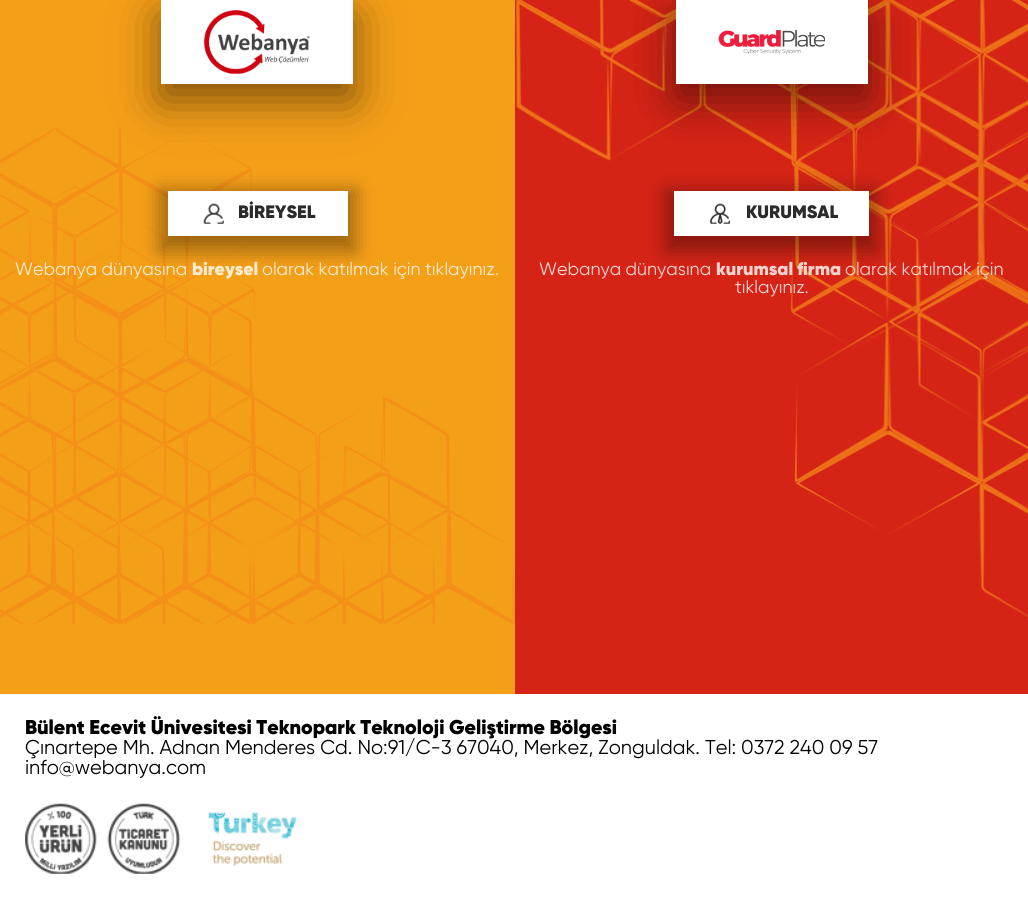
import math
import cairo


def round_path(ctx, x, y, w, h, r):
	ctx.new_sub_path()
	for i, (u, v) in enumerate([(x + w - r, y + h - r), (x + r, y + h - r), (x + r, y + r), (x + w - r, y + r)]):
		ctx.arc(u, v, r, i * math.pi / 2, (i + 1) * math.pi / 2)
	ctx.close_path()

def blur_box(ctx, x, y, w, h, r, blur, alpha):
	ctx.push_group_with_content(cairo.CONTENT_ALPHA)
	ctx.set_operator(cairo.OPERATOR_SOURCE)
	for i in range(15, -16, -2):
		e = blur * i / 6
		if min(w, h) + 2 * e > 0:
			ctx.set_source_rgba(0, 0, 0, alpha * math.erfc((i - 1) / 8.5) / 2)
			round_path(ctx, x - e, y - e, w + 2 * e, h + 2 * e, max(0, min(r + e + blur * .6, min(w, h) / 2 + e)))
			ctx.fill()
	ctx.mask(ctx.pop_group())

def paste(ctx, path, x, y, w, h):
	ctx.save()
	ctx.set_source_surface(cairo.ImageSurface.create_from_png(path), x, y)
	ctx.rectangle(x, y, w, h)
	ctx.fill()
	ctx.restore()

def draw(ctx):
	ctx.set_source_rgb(1, 1, 1)
	ctx.paint()
	ctx.set_source_rgb(0.957, 0.624, 0.094)
	ctx.rectangle(0, 0, 515, 694)
	ctx.fill()
	paste(ctx, 'media/1.png', 0, 127, 515, 497)
	ctx.set_source_rgb(0, 0, 0)
	blur_box(ctx, 161, 16, 192, 84, 0, 23, 0.49)
	ctx.set_source_rgb(1, 1, 1)
	ctx.rectangle(161, 0, 192, 84)
	ctx.fill()
	paste(ctx, 'media/2.png', 203, 10, 107, 64)
	ctx.set_source_rgb(0, 0, 0)
	blur_box(ctx, 160, 191, 195, 60, 0, 10, 0.36)
	ctx.set_source_rgb(1, 1, 1)
	ctx.rectangle(168, 191, 180, 45)
	ctx.fill()
	paste(ctx, 'media/3.png', 203, 203, 21, 21)
	ctx.select_font_face('Gilroy Black')
	ctx.set_font_size(18)
	ctx.set_source_rgb(0.169, 0.169, 0.169)
	ctx.move_to(238, 218)
	ctx.show_text('BİREYSEL')
	ctx.select_font_face('Gilroy')
	ctx.set_source_rgb(0.992, 0.922, 0.82)
	ctx.move_to(15, 275)
	ctx.show_text('Webanya dünyasına')
	ctx.select_font_face('Gilroy Black')
	ctx.move_to(192, 275)
	ctx.show_text('bireysel')
	ctx.select_font_face('Gilroy')
	ctx.move_to(262, 275)
	ctx.show_text('olarak katılmak için tıklayınız.')
	ctx.set_source_rgb(0.835, 0.141, 0.086)
	ctx.rectangle(515, 0, 513, 694)
	ctx.fill()
	paste(ctx, 'media/4.png', 515, 0, 513, 617)
	ctx.set_source_rgb(0, 0, 0)
	blur_box(ctx, 676, 16, 192, 84, 0, 23, 0.49)
	ctx.set_source_rgb(1, 1, 1)
	ctx.rectangle(676, 0, 192, 84)
	ctx.fill()
	paste(ctx, 'media/5.png', 718, 30, 107, 24)
	ctx.set_source_rgb(0, 0, 0)
	blur_box(ctx, 666, 191, 210, 60, 0, 10, 0.36)
	ctx.set_source_rgb(1, 1, 1)
	ctx.rectangle(674, 191, 195, 45)
	ctx.fill()
	paste(ctx, 'media/6.png', 710, 203, 20, 21)
	ctx.select_font_face('Gilroy Black')
	ctx.set_source_rgb(0.169, 0.169, 0.169)
	ctx.move_to(746, 218)
	ctx.show_text('KURUMSAL')
	ctx.select_font_face('Gilroy')
	ctx.set_source_rgb(0.969, 0.827, 0.816)
	ctx.move_to(539, 275)
	ctx.show_text('Webanya dünyasına')
	ctx.select_font_face('Gilroy Black')
	ctx.move_to(716, 275)
	ctx.show_text('kurumsal firma')
	ctx.select_font_face('Gilroy')
	ctx.move_to(845, 275)
	ctx.show_text('olarak katılmak için')
	ctx.move_to(735, 293)
	ctx.show_text('tıklayınız.')
	ctx.select_font_face('Gilroy Black')
	ctx.set_font_size(20)
	ctx.set_source_rgb(0, 0, 0)
	ctx.move_to(25, 734)
	ctx.show_text('Bülent Ecevit Ünivesitesi Teknopark Teknoloji Geliştirme Bölgesi')
	ctx.select_font_face('Gilroy')
	ctx.move_to(25, 754)
	ctx.show_text('Çınartepe Mh. Adnan Menderes Cd. No:91/C-3 67040, Merkez, Zonguldak. Tel: 0372 240 09 57')
	ctx.move_to(25, 774)
	ctx.show_text('info@webanya.com')
	paste(ctx, 'media/7.png', 25, 803, 272, 71)


surface = cairo.ImageSurface(cairo.FORMAT_RGB24, 1028, 902)
ctx = cairo.Context(surface)
options = cairo.FontOptions()
options.set_hint_metrics(cairo.HINT_METRICS_OFF)
options.set_hint_style(cairo.HINT_STYLE_NONE)
ctx.set_font_options(options)
ctx.set_miter_limit(4)
draw(ctx)
surface.write_to_png('image.png')
